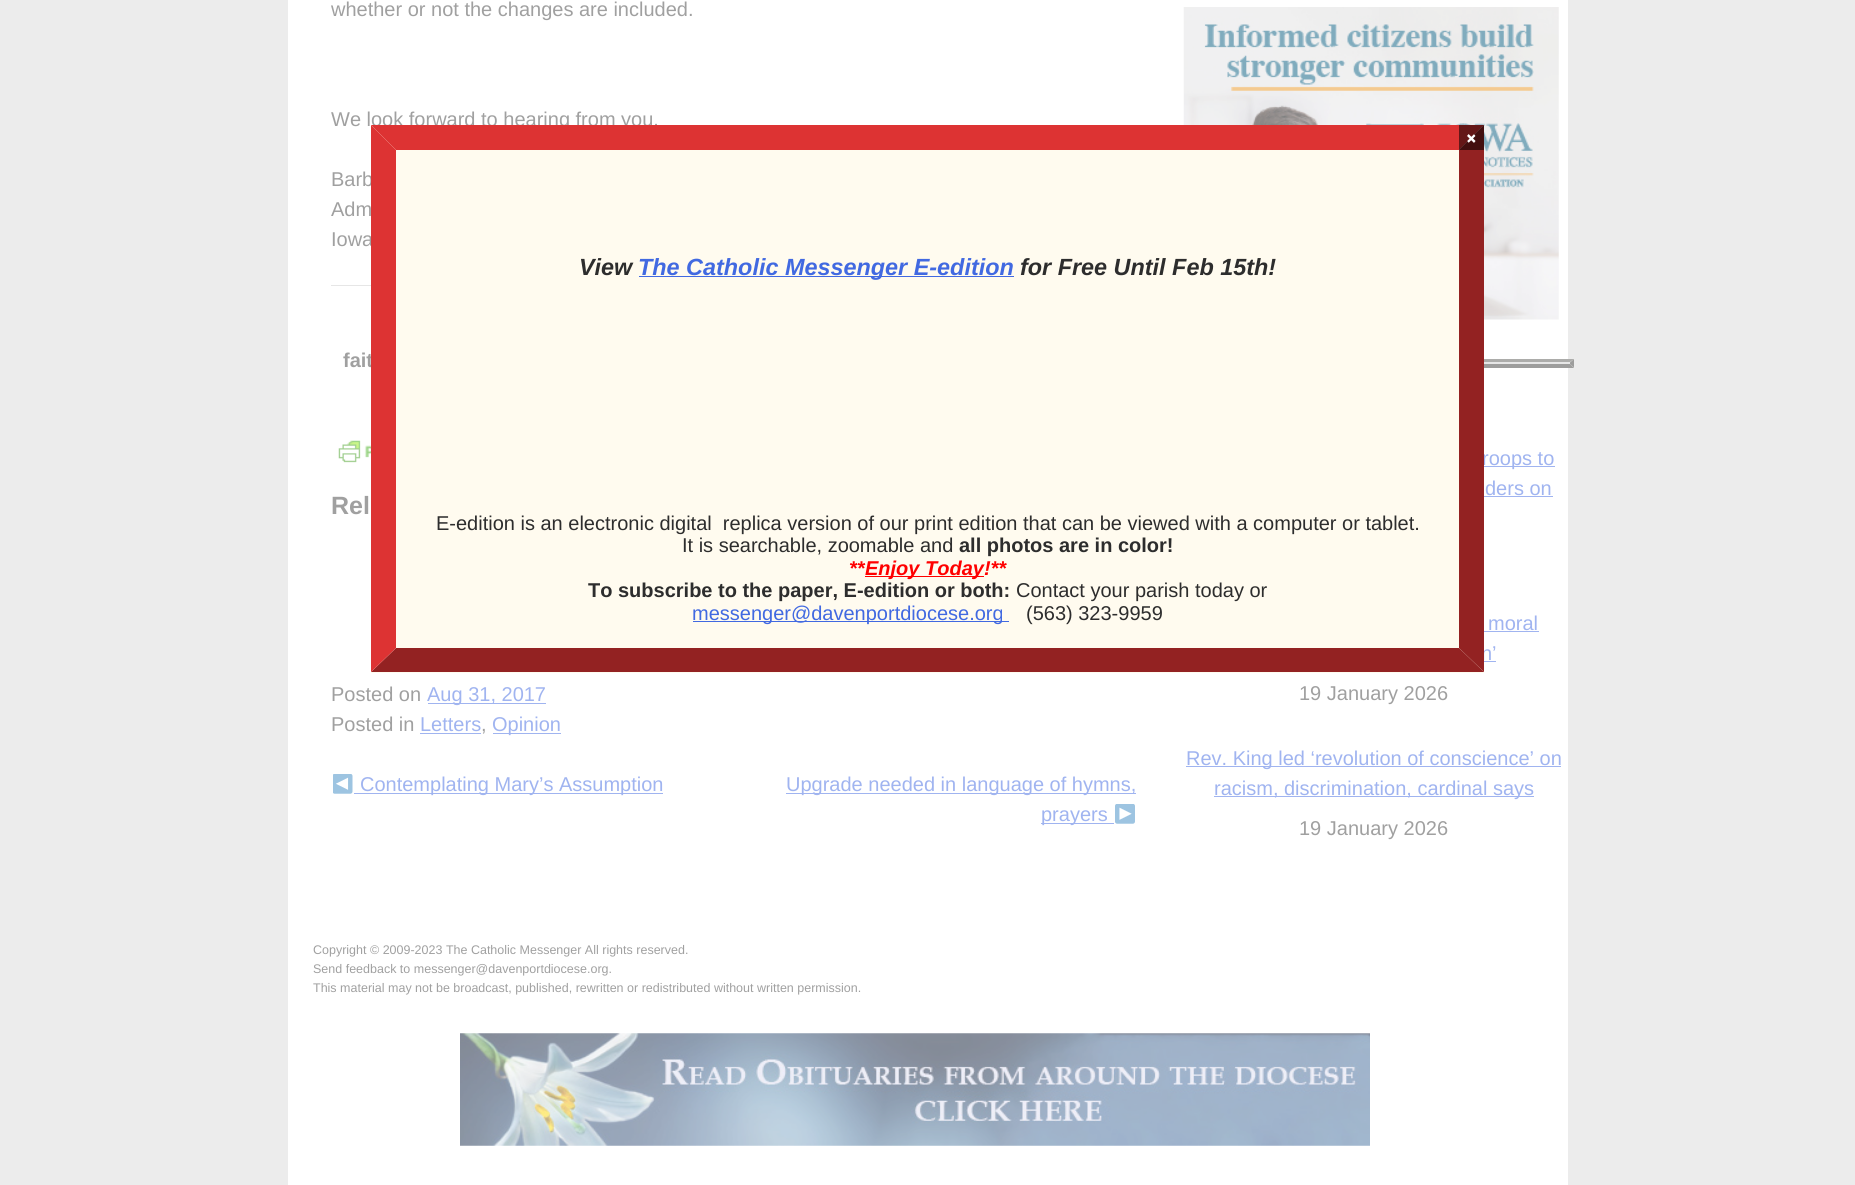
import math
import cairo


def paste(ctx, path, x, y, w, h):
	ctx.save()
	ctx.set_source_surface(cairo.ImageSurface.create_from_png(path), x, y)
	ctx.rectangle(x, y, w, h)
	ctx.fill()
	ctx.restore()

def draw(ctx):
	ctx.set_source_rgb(0.925, 0.925, 0.925)
	ctx.paint()
	ctx.set_source_rgb(1, 1, 1)
	ctx.rectangle(288, 0, 1280, 1185)
	ctx.fill()
	ctx.select_font_face('Liberation Sans')
	ctx.set_font_size(20)
	ctx.set_source_rgb(0.627, 0.627, 0.627)
	for x, y, s in [
		(331, 16, 'whether or not the changes are included.'),
		(331, 126, 'We look forward to hearing from you.'),
		(331, 186, 'Barb'),
		(331, 216, 'Adm'),
		(331, 246, 'Iowa'),
	]:
		ctx.move_to(x, y)
		ctx.show_text(s)
	ctx.set_source_rgb(0.902, 0.902, 0.902)
	ctx.rectangle(331, 285, 40, 1)
	ctx.fill()
	ctx.select_font_face('Liberation Sans', cairo.FONT_SLANT_NORMAL, cairo.FONT_WEIGHT_BOLD)
	ctx.set_source_rgb(0.627, 0.627, 0.627)
	ctx.move_to(343, 367)
	ctx.show_text('fait')
	paste(ctx, 'media/1.png', 338, 440, 33, 23)
	ctx.set_font_size(25)
	ctx.move_to(331, 514)
	ctx.show_text('Rel')
	ctx.select_font_face('Liberation Sans')
	ctx.set_font_size(20)
	ctx.move_to(331, 701)
	ctx.show_text('Posted on')
	ctx.set_source_rgb(0.627, 0.706, 0.941)
	ctx.rectangle(428, 703, 118, 1)
	ctx.fill()
	ctx.move_to(427, 701)
	ctx.show_text('Aug 31, 2017')
	ctx.set_source_rgb(0.627, 0.627, 0.627)
	ctx.move_to(331, 731)
	ctx.show_text('Posted in')
	ctx.set_source_rgb(0.627, 0.706, 0.941)
	ctx.move_to(420, 731)
	ctx.show_text('Letters')
	ctx.set_source_rgb(0.627, 0.627, 0.627)
	ctx.move_to(481, 731)
	ctx.show_text(',')
	ctx.set_source_rgb(0.627, 0.706, 0.941)
	ctx.rectangle(420, 733, 61, 1)
	ctx.fill()
	ctx.rectangle(493, 733, 68, 1)
	ctx.fill()
	ctx.move_to(492, 731)
	ctx.show_text('Opinion')
	paste(ctx, 'media/2.png', 333, 774, 20, 20)
	ctx.rectangle(354, 793, 309, 1)
	ctx.fill()
	ctx.move_to(360, 791)
	ctx.show_text('Contemplating Mary’s Assumption')
	ctx.rectangle(786, 793, 350, 1)
	ctx.fill()
	ctx.move_to(786, 791)
	ctx.show_text('Upgrade needed in language of hymns,')
	ctx.rectangle(1041, 823, 73, 1)
	ctx.fill()
	ctx.move_to(1041, 821)
	ctx.show_text('prayers')
	paste(ctx, 'media/3.png', 1115, 804, 20, 20)
	paste(ctx, 'media/4.png', 1183, 7, 376, 313)
	ctx.set_source_rgb(0.902, 0.902, 0.902)
	ctx.rectangle(1484, 359, 90, 9)
	ctx.fill()
	ctx.set_source_rgb(0.675, 0.675, 0.667)
	ctx.new_path()
	ctx.move_to(1174, 359)
	ctx.line_to(1574, 359)
	ctx.line_to(1570, 362)
	ctx.line_to(1178, 362)
	ctx.close_path()
	ctx.fill()
	ctx.set_source_rgb(0.616, 0.616, 0.612)
	ctx.new_path()
	ctx.move_to(1574, 359)
	ctx.line_to(1574, 367.5)
	ctx.line_to(1570, 364)
	ctx.line_to(1570, 362.5)
	ctx.close_path()
	ctx.fill()
	ctx.new_path()
	ctx.move_to(1574, 368)
	ctx.line_to(1174, 368)
	ctx.line_to(1178, 364)
	ctx.line_to(1570, 364)
	ctx.close_path()
	ctx.fill()
	ctx.set_source_rgb(0.627, 0.706, 0.941)
	ctx.rectangle(1484, 466, 71, 1)
	ctx.fill()
	ctx.move_to(1482, 465)
	ctx.show_text('roops to')
	ctx.move_to(1485, 495)
	ctx.show_text('ders on')
	ctx.rectangle(1484, 496, 69, 1)
	ctx.fill()
	ctx.move_to(1488, 630)
	ctx.show_text('moral')
	ctx.rectangle(1484, 631, 55, 1)
	ctx.fill()
	ctx.move_to(1481, 660)
	ctx.show_text('n’')
	ctx.rectangle(1484, 661, 12, 1)
	ctx.fill()
	ctx.set_source_rgb(0.627, 0.627, 0.627)
	ctx.move_to(1299, 700)
	ctx.show_text('19 January 2026')
	ctx.set_source_rgb(0.627, 0.706, 0.941)
	ctx.rectangle(1186, 766, 375, 1)
	ctx.fill()
	ctx.move_to(1186, 765)
	ctx.show_text('Rev. King led ‘revolution of conscience’ on')
	ctx.rectangle(1214, 796, 320, 1)
	ctx.fill()
	ctx.move_to(1214, 795)
	ctx.show_text('racism, discrimination, cardinal says')
	ctx.set_source_rgb(0.627, 0.627, 0.627)
	ctx.move_to(1299, 835)
	ctx.show_text('19 January 2026')
	ctx.set_font_size(12.5)
	for x, y, s in [
		(313, 954, 'Copyright © 2009-2023 The Catholic Messenger All rights reserved.'),
		(313, 973, 'Send feedback to messenger@davenportdiocese.org.'),
		(313, 992, 'This material may not be broadcast, published, rewritten or redistributed without written permission.'),
	]:
		ctx.move_to(x, y)
		ctx.show_text(s)
	paste(ctx, 'media/5.png', 460, 1033, 910, 113)
	ctx.set_source_rgb(1, 0.984, 0.937)
	ctx.rectangle(371, 125, 1113, 548)
	ctx.fill()
	ctx.set_source_rgb(0.867, 0.2, 0.2)
	ctx.new_path()
	ctx.move_to(371, 125)
	ctx.line_to(1484, 125)
	ctx.line_to(1459, 150)
	ctx.line_to(396, 150)
	ctx.close_path()
	ctx.fill()
	ctx.set_source_rgb(0.576, 0.133, 0.133)
	ctx.new_path()
	ctx.move_to(1484, 125)
	ctx.line_to(1484, 672)
	ctx.line_to(1459, 648)
	ctx.line_to(1459, 150)
	ctx.close_path()
	ctx.fill()
	ctx.new_path()
	ctx.move_to(1484, 672)
	ctx.line_to(371, 672)
	ctx.line_to(396, 648)
	ctx.line_to(1459, 648)
	ctx.close_path()
	ctx.fill()
	ctx.set_source_rgb(0.867, 0.2, 0.2)
	ctx.new_path()
	ctx.move_to(371, 672)
	ctx.line_to(371, 125)
	ctx.line_to(396, 150)
	ctx.line_to(396, 648)
	ctx.close_path()
	ctx.fill()
	ctx.set_source_rgba(0, 0, 0, 0.55)
	ctx.rectangle(1459, 125, 25, 25)
	ctx.fill()
	ctx.select_font_face('Acme')
	ctx.set_font_size(25)
	ctx.set_source_rgb(1, 1, 1)
	ctx.move_to(1466, 145)
	ctx.show_text('×')
	ctx.select_font_face('Liberation Sans', cairo.FONT_SLANT_ITALIC, cairo.FONT_WEIGHT_BOLD)
	ctx.set_font_size(23.4)
	ctx.set_source_rgb(0.176, 0.176, 0.176)
	ctx.move_to(579, 275)
	ctx.show_text('View')
	ctx.set_source_rgb(0.255, 0.412, 0.882)
	ctx.rectangle(639, 276, 375, 1)
	ctx.fill()
	ctx.move_to(638, 275)
	ctx.show_text('The Catholic Messenger E-edition')
	ctx.set_source_rgb(0.176, 0.176, 0.176)
	ctx.move_to(1020, 275)
	ctx.show_text('for Free Until Feb 15th!')
	ctx.select_font_face('Liberation Sans')
	ctx.set_font_size(20)
	ctx.move_to(436, 530)
	ctx.show_text('E-edition is an electronic digital  replica version of our print edition that can be viewed with a computer or tablet.')
	ctx.move_to(682, 552)
	ctx.show_text('It is searchable, zoomable and')
	ctx.select_font_face('Liberation Sans', cairo.FONT_SLANT_NORMAL, cairo.FONT_WEIGHT_BOLD)
	ctx.move_to(959, 552)
	ctx.show_text('all photos are in color!')
	ctx.select_font_face('Liberation Sans', cairo.FONT_SLANT_ITALIC, cairo.FONT_WEIGHT_BOLD)
	ctx.set_source_rgb(1, 0, 0)
	ctx.move_to(849, 575)
	ctx.show_text('**')
	ctx.rectangle(865, 576, 119, 1)
	ctx.fill()
	ctx.move_to(865, 575)
	ctx.show_text('Enjoy Today!**')
	ctx.select_font_face('Liberation Sans', cairo.FONT_SLANT_NORMAL, cairo.FONT_WEIGHT_BOLD)
	ctx.set_source_rgb(0.176, 0.176, 0.176)
	ctx.move_to(588, 597)
	ctx.show_text('To subscribe to the paper, E-edition or both:')
	ctx.select_font_face('Liberation Sans')
	ctx.move_to(1016, 597)
	ctx.show_text('Contact your parish today or')
	ctx.set_source_rgb(0.255, 0.412, 0.882)
	ctx.rectangle(693, 621, 316, 1)
	ctx.fill()
	ctx.move_to(692, 620)
	ctx.show_text('messenger@davenportdiocese.org')
	ctx.set_source_rgb(0.176, 0.176, 0.176)
	ctx.move_to(1026, 620)
	ctx.show_text('(563) 323-9959')


surface = cairo.ImageSurface(cairo.FORMAT_RGB24, 1855, 1185)
ctx = cairo.Context(surface)
options = cairo.FontOptions()
options.set_hint_metrics(cairo.HINT_METRICS_OFF)
options.set_hint_style(cairo.HINT_STYLE_NONE)
ctx.set_font_options(options)
ctx.set_miter_limit(4)
draw(ctx)
surface.write_to_png('image.png')
